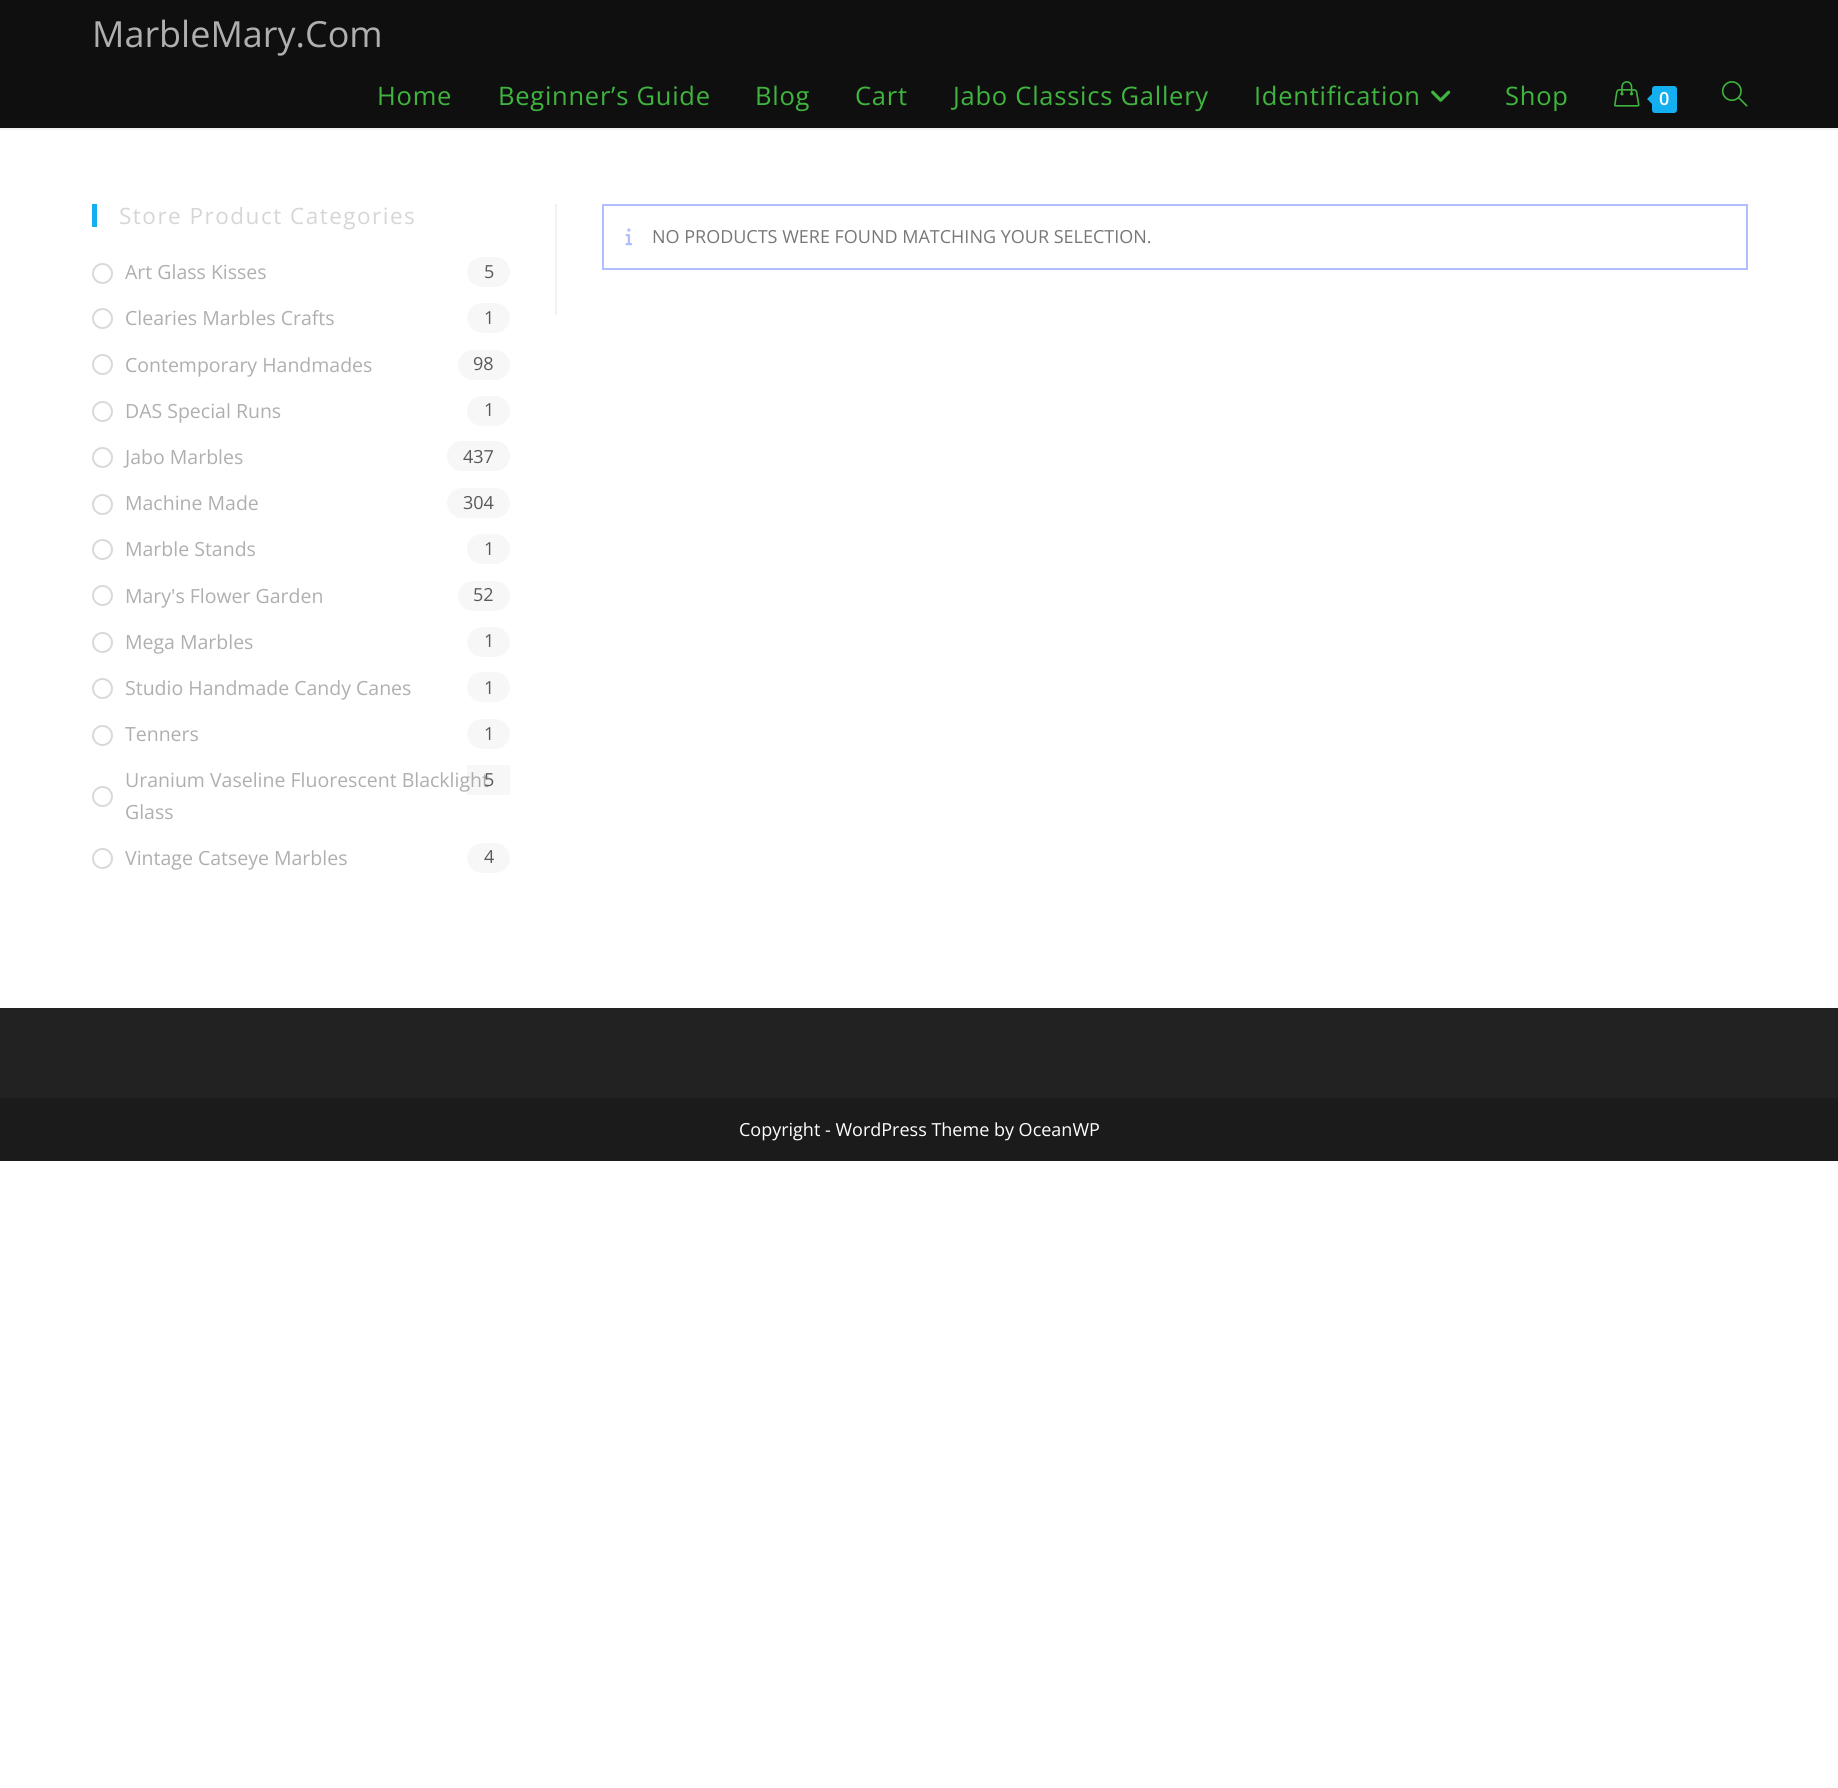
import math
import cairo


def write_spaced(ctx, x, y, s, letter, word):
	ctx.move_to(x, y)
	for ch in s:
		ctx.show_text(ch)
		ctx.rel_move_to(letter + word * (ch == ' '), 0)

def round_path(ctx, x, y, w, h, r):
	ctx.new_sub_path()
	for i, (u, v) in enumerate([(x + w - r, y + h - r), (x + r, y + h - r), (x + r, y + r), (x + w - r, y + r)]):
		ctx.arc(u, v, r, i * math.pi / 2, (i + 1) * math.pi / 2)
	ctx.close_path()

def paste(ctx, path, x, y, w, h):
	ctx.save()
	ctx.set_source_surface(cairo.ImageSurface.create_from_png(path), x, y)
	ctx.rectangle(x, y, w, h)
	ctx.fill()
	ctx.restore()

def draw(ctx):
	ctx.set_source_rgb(1, 1, 1)
	ctx.paint()
	ctx.set_source_rgb(0.059, 0.059, 0.059)
	ctx.rectangle(0, 0, 1838, 128)
	ctx.fill()
	ctx.set_source_rgb(0.945, 0.945, 0.945)
	ctx.rectangle(0, 128, 1838, 2)
	ctx.fill()
	ctx.select_font_face('Open Sans')
	ctx.set_font_size(36)
	ctx.set_source_rgb(0.686, 0.686, 0.686)
	ctx.move_to(92, 47)
	ctx.show_text('MarbleMary.Com')
	ctx.set_font_size(25.5)
	ctx.set_source_rgb(0.247, 0.71, 0.247)
	for x, y, s in [
		(377, 105, 'Home'),
		(498, 105, 'Beginner’s Guide'),
		(755, 105, 'Blog'),
		(855, 105, 'Cart'),
		(953, 105, 'Jabo Classics Gallery'),
		(1254, 105, 'Identification'),
	]:
		write_spaced(ctx, x, y, s, 0.75, 0)
	paste(ctx, 'media/1.png', 1431, 90, 20, 12)
	write_spaced(ctx, 1505, 105, 'Shop', 0.75, 0)
	paste(ctx, 'media/2.png', 1614, 81, 26, 26)
	ctx.set_source_rgb(0.075, 0.686, 0.941)
	round_path(ctx, 1652, 86, 25, 27, 3)
	ctx.fill()
	ctx.new_path()
	ctx.move_to(1654.5, 91.5)
	ctx.line_to(1654.5, 106.5)
	ctx.line_to(1647, 99)
	ctx.close_path()
	ctx.fill()
	ctx.select_font_face('Open Sans SemiBold')
	ctx.set_font_size(18)
	ctx.set_source_rgb(1, 1, 1)
	ctx.move_to(1659, 105)
	ctx.show_text('0')
	paste(ctx, 'media/3.png', 1721, 81, 27, 26)
	ctx.set_source_rgb(0.075, 0.686, 0.941)
	ctx.rectangle(92, 204, 5, 23)
	ctx.fill()
	ctx.select_font_face('Open Sans')
	ctx.set_font_size(22.5)
	ctx.set_source_rgb(0.839, 0.839, 0.839)
	write_spaced(ctx, 119, 224, 'Store Product Categories', 1.5, 0)
	ctx.new_path()
	ctx.arc(102.5, 273.5, 9.5, 0, 2 * math.pi)
	ctx.set_source_rgb(0.851, 0.851, 0.851)
	ctx.stroke()
	ctx.set_font_size(19.5)
	ctx.set_source_rgb(0.686, 0.686, 0.686)
	ctx.move_to(125, 279)
	ctx.show_text('Art Glass Kisses')
	ctx.set_source_rgb(0.965, 0.965, 0.965)
	round_path(ctx, 467, 257, 43, 30, 15)
	ctx.fill()
	ctx.set_font_size(18)
	ctx.set_source_rgb(0.349, 0.349, 0.349)
	ctx.move_to(484, 278)
	ctx.show_text('5')
	ctx.new_path()
	ctx.arc(102.5, 318.5, 9.5, 0, 2 * math.pi)
	ctx.set_source_rgb(0.851, 0.851, 0.851)
	ctx.stroke()
	ctx.set_font_size(19.5)
	ctx.set_source_rgb(0.686, 0.686, 0.686)
	ctx.move_to(125, 325)
	ctx.show_text('Clearies Marbles Crafts')
	ctx.set_source_rgb(0.965, 0.965, 0.965)
	round_path(ctx, 467, 303, 43, 30, 15)
	ctx.fill()
	ctx.set_font_size(18)
	ctx.set_source_rgb(0.349, 0.349, 0.349)
	ctx.move_to(484, 324)
	ctx.show_text('1')
	ctx.new_path()
	ctx.arc(102.5, 364.5, 9.5, 0, 2 * math.pi)
	ctx.set_source_rgb(0.851, 0.851, 0.851)
	ctx.stroke()
	ctx.set_font_size(19.5)
	ctx.set_source_rgb(0.686, 0.686, 0.686)
	ctx.move_to(125, 372)
	ctx.show_text('Contemporary Handmades')
	ctx.set_source_rgb(0.965, 0.965, 0.965)
	round_path(ctx, 458, 350, 52, 30, 15)
	ctx.fill()
	ctx.set_font_size(18)
	ctx.set_source_rgb(0.349, 0.349, 0.349)
	ctx.move_to(473, 370)
	ctx.show_text('98')
	ctx.new_path()
	ctx.arc(102.5, 411.5, 9.5, 0, 2 * math.pi)
	ctx.set_source_rgb(0.851, 0.851, 0.851)
	ctx.stroke()
	ctx.set_font_size(19.5)
	ctx.set_source_rgb(0.686, 0.686, 0.686)
	ctx.move_to(125, 418)
	ctx.show_text('DAS Special Runs')
	ctx.set_source_rgb(0.965, 0.965, 0.965)
	round_path(ctx, 467, 396, 43, 30, 15)
	ctx.fill()
	ctx.set_font_size(18)
	ctx.set_source_rgb(0.349, 0.349, 0.349)
	ctx.move_to(484, 416)
	ctx.show_text('1')
	ctx.new_path()
	ctx.arc(102.5, 457.5, 9.5, 0, 2 * math.pi)
	ctx.set_source_rgb(0.851, 0.851, 0.851)
	ctx.stroke()
	ctx.set_font_size(19.5)
	ctx.set_source_rgb(0.686, 0.686, 0.686)
	ctx.move_to(125, 464)
	ctx.show_text('Jabo Marbles')
	ctx.set_source_rgb(0.965, 0.965, 0.965)
	round_path(ctx, 447, 441, 63, 30, 15)
	ctx.fill()
	ctx.set_font_size(18)
	ctx.set_source_rgb(0.349, 0.349, 0.349)
	ctx.move_to(463, 463)
	ctx.show_text('437')
	ctx.new_path()
	ctx.arc(102.5, 504.5, 9.5, 0, 2 * math.pi)
	ctx.set_source_rgb(0.851, 0.851, 0.851)
	ctx.stroke()
	ctx.set_font_size(19.5)
	ctx.set_source_rgb(0.686, 0.686, 0.686)
	ctx.move_to(125, 510)
	ctx.show_text('Machine Made')
	ctx.set_source_rgb(0.965, 0.965, 0.965)
	round_path(ctx, 447, 488, 63, 30, 15)
	ctx.fill()
	ctx.set_font_size(18)
	ctx.set_source_rgb(0.349, 0.349, 0.349)
	ctx.move_to(463, 509)
	ctx.show_text('304')
	ctx.new_path()
	ctx.arc(102.5, 549.5, 9.5, 0, 2 * math.pi)
	ctx.set_source_rgb(0.851, 0.851, 0.851)
	ctx.stroke()
	ctx.set_font_size(19.5)
	ctx.set_source_rgb(0.686, 0.686, 0.686)
	ctx.move_to(125, 556)
	ctx.show_text('Marble Stands')
	ctx.set_source_rgb(0.965, 0.965, 0.965)
	round_path(ctx, 467, 534, 43, 30, 15)
	ctx.fill()
	ctx.set_font_size(18)
	ctx.set_source_rgb(0.349, 0.349, 0.349)
	ctx.move_to(484, 555)
	ctx.show_text('1')
	ctx.new_path()
	ctx.arc(102.5, 595.5, 9.5, 0, 2 * math.pi)
	ctx.set_source_rgb(0.851, 0.851, 0.851)
	ctx.stroke()
	ctx.set_font_size(19.5)
	ctx.set_source_rgb(0.686, 0.686, 0.686)
	ctx.move_to(125, 603)
	ctx.show_text('Mary\'s Flower Garden')
	ctx.set_source_rgb(0.965, 0.965, 0.965)
	round_path(ctx, 458, 581, 52, 30, 15)
	ctx.fill()
	ctx.set_font_size(18)
	ctx.set_source_rgb(0.349, 0.349, 0.349)
	ctx.move_to(473, 601)
	ctx.show_text('52')
	ctx.new_path()
	ctx.arc(102.5, 642.5, 9.5, 0, 2 * math.pi)
	ctx.set_source_rgb(0.851, 0.851, 0.851)
	ctx.stroke()
	ctx.set_font_size(19.5)
	ctx.set_source_rgb(0.686, 0.686, 0.686)
	ctx.move_to(125, 649)
	ctx.show_text('Mega Marbles')
	ctx.set_source_rgb(0.965, 0.965, 0.965)
	round_path(ctx, 467, 627, 43, 30, 15)
	ctx.fill()
	ctx.set_font_size(18)
	ctx.set_source_rgb(0.349, 0.349, 0.349)
	ctx.move_to(484, 647)
	ctx.show_text('1')
	ctx.new_path()
	ctx.arc(102.5, 688.5, 9.5, 0, 2 * math.pi)
	ctx.set_source_rgb(0.851, 0.851, 0.851)
	ctx.stroke()
	ctx.set_font_size(19.5)
	ctx.set_source_rgb(0.686, 0.686, 0.686)
	ctx.move_to(125, 695)
	ctx.show_text('Studio Handmade Candy Canes')
	ctx.set_source_rgb(0.965, 0.965, 0.965)
	round_path(ctx, 467, 672, 43, 30, 15)
	ctx.fill()
	ctx.set_font_size(18)
	ctx.set_source_rgb(0.349, 0.349, 0.349)
	ctx.move_to(484, 694)
	ctx.show_text('1')
	ctx.new_path()
	ctx.arc(102.5, 735.5, 9.5, 0, 2 * math.pi)
	ctx.set_source_rgb(0.851, 0.851, 0.851)
	ctx.stroke()
	ctx.set_font_size(19.5)
	ctx.set_source_rgb(0.686, 0.686, 0.686)
	ctx.move_to(125, 741)
	ctx.show_text('Tenners')
	ctx.set_source_rgb(0.965, 0.965, 0.965)
	round_path(ctx, 467, 719, 43, 30, 15)
	ctx.fill()
	ctx.set_font_size(18)
	ctx.set_source_rgb(0.349, 0.349, 0.349)
	ctx.move_to(484, 740)
	ctx.show_text('1')
	ctx.set_font_size(19.5)
	ctx.set_source_rgb(0.686, 0.686, 0.686)
	ctx.move_to(125, 787)
	ctx.show_text('Uranium Vaseline Fluorescent Blacklight')
	ctx.new_path()
	ctx.arc(102.5, 796.5, 9.5, 0, 2 * math.pi)
	ctx.set_source_rgb(0.851, 0.851, 0.851)
	ctx.stroke()
	ctx.set_source_rgb(0.686, 0.686, 0.686)
	ctx.move_to(125, 819)
	ctx.show_text('Glass')
	ctx.set_source_rgba(0.329, 0.329, 0.329, 0.05)
	ctx.rectangle(467, 765, 43, 30)
	ctx.fill()
	ctx.set_font_size(18)
	ctx.set_source_rgb(0.349, 0.349, 0.349)
	ctx.move_to(484, 786)
	ctx.show_text('5')
	ctx.new_path()
	ctx.arc(102.5, 858.5, 9.5, 0, 2 * math.pi)
	ctx.set_source_rgb(0.851, 0.851, 0.851)
	ctx.stroke()
	ctx.set_font_size(19.5)
	ctx.set_source_rgb(0.686, 0.686, 0.686)
	ctx.move_to(125, 865)
	ctx.show_text('Vintage Catseye Marbles')
	ctx.set_source_rgb(0.965, 0.965, 0.965)
	round_path(ctx, 467, 843, 43, 30, 15)
	ctx.fill()
	ctx.set_font_size(18)
	ctx.set_source_rgb(0.349, 0.349, 0.349)
	ctx.move_to(484, 863)
	ctx.show_text('4')
	ctx.set_source_rgb(0.945, 0.945, 0.945)
	ctx.rectangle(555, 204, 2, 111)
	ctx.fill()
	ctx.rectangle(603, 205, 1144, 64)
	ctx.set_source_rgb(0.694, 0.745, 0.992)
	ctx.stroke()
	paste(ctx, 'media/4.png', 625, 228, 8, 18)
	ctx.set_source_rgb(0.467, 0.467, 0.467)
	ctx.move_to(652, 243)
	ctx.show_text('NO PRODUCTS WERE FOUND MATCHING YOUR SELECTION.')
	ctx.set_source_rgb(0.133, 0.133, 0.133)
	ctx.rectangle(0, 1008, 1838, 90)
	ctx.fill()
	ctx.set_source_rgb(0.106, 0.106, 0.106)
	ctx.rectangle(0, 1098, 1838, 63)
	ctx.fill()
	ctx.set_source_rgb(1, 1, 1)
	ctx.move_to(739, 1136)
	ctx.show_text('Copyright - WordPress Theme by OceanWP')


surface = cairo.ImageSurface(cairo.FORMAT_RGB24, 1838, 1788)
ctx = cairo.Context(surface)
options = cairo.FontOptions()
options.set_hint_metrics(cairo.HINT_METRICS_OFF)
options.set_hint_style(cairo.HINT_STYLE_NONE)
ctx.set_font_options(options)
ctx.set_miter_limit(4)
draw(ctx)
surface.write_to_png('image.png')
